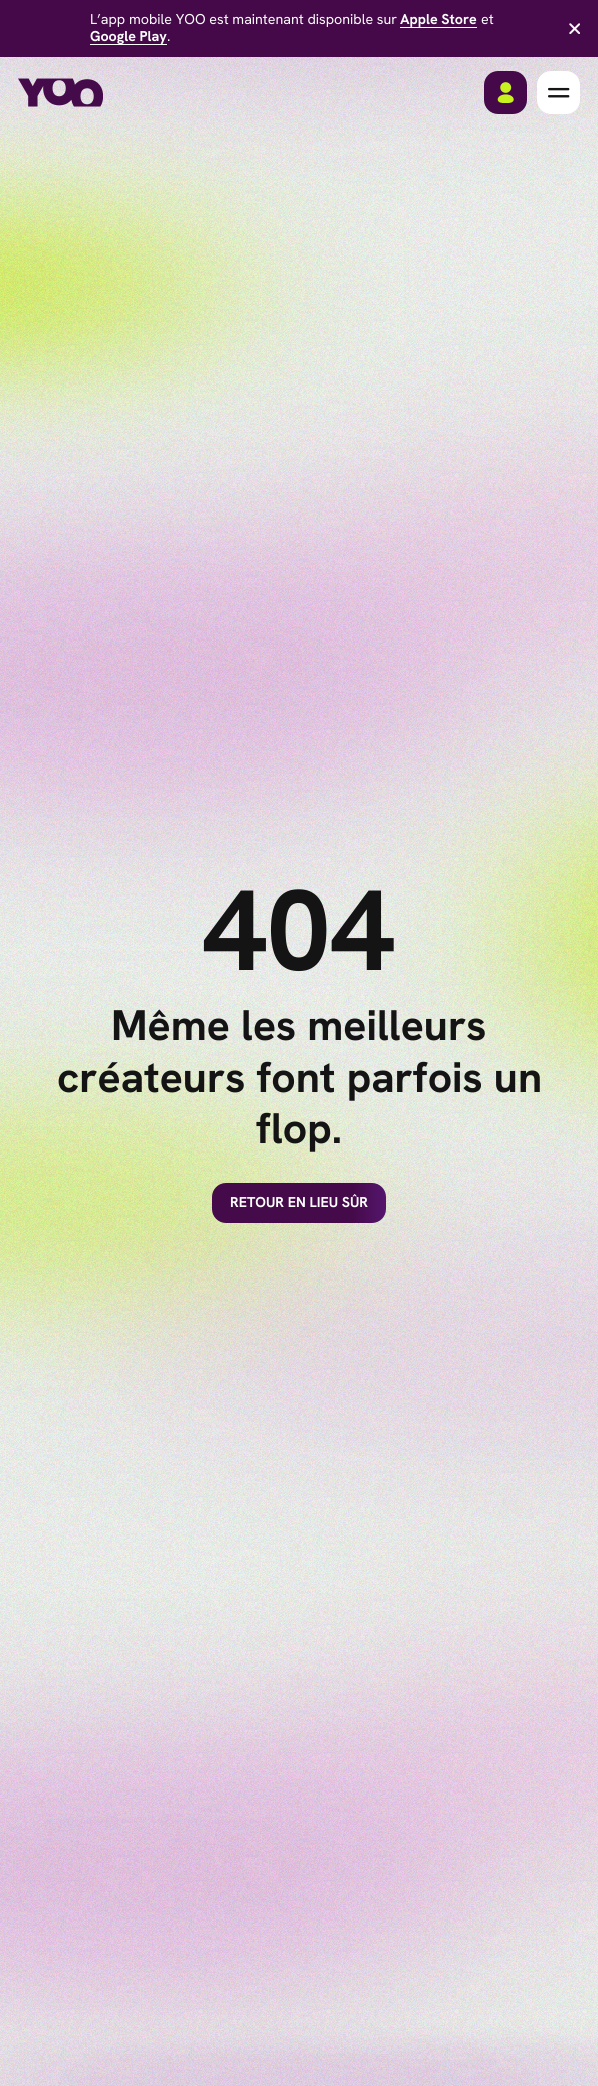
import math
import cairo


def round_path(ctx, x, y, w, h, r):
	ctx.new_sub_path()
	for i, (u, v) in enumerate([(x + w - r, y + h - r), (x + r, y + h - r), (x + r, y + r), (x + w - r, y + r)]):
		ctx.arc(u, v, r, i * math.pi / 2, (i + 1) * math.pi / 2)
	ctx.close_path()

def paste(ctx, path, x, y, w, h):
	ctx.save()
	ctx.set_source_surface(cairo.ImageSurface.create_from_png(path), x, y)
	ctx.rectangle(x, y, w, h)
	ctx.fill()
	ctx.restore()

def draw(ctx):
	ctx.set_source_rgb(1, 1, 1)
	ctx.paint()
	ctx.set_source_rgb(0.271, 0.039, 0.29)
	ctx.rectangle(0, 0, 598, 57)
	ctx.fill()
	ctx.select_font_face('Hanken Grotesk')
	ctx.set_font_size(14.25)
	ctx.set_source_rgb(1, 1, 1)
	ctx.move_to(90, 24)
	ctx.show_text('L’app mobile YOO est maintenant disponible sur')
	ctx.select_font_face('Hanken Grotesk', cairo.FONT_SLANT_NORMAL, cairo.FONT_WEIGHT_BOLD)
	ctx.move_to(400, 24)
	ctx.show_text('Apple Store')
	ctx.rectangle(400, 27, 77, 1)
	ctx.fill()
	ctx.select_font_face('Hanken Grotesk')
	ctx.move_to(481, 24)
	ctx.show_text('et')
	ctx.rectangle(90, 44, 77, 1)
	ctx.fill()
	ctx.select_font_face('Hanken Grotesk', cairo.FONT_SLANT_NORMAL, cairo.FONT_WEIGHT_BOLD)
	ctx.move_to(90, 41)
	ctx.show_text('Google Play')
	ctx.select_font_face('Hanken Grotesk')
	ctx.move_to(167, 41)
	ctx.show_text('.')
	paste(ctx, 'media/1.png', 569, 23, 11, 11)
	paste(ctx, 'media/5.png', 0, 57, 598, 2029)
	paste(ctx, 'media/6.png', 0, 57, 598, 2029)
	paste(ctx, 'media/2.png', 18, 78, 85, 29)
	ctx.set_source_rgb(0.271, 0.039, 0.29)
	round_path(ctx, 484, 71, 43, 43, 14)
	ctx.fill()
	paste(ctx, 'media/3.png', 497, 82, 17, 21)
	ctx.set_source_rgb(1, 1, 1)
	round_path(ctx, 537, 71, 43, 43, 14)
	ctx.fill()
	paste(ctx, 'media/4.png', 548, 87, 22, 11)
	ctx.select_font_face('Hanken Grotesk', cairo.FONT_SLANT_NORMAL, cairo.FONT_WEIGHT_BOLD)
	ctx.set_font_size(114)
	ctx.set_source_rgb(0.082, 0.082, 0.082)
	ctx.move_to(203, 970)
	ctx.show_text('404')
	ctx.set_font_size(42.75)
	for x, y, s in [
		(111, 1040, 'Même les meilleurs'),
		(57, 1092, 'créateurs font parfois un'),
		(256, 1143, 'flop.'),
	]:
		ctx.move_to(x, y)
		ctx.show_text(s)
	gradient = cairo.LinearGradient(212, 1203, 525, 1203)
	gradient.add_color_stop_rgba(0.35, 0.271, 0.039, 0.29, 1)
	gradient.add_color_stop_rgba(0.45, 0.271, 0.039, 0.29, 1)
	gradient.add_color_stop_rgba(1, 0.592, 0.278, 1, 1)
	ctx.set_source(gradient)
	round_path(ctx, 212, 1183, 174, 40, 14)
	ctx.fill()
	ctx.set_font_size(14.25)
	ctx.set_source_rgb(1, 1, 1)
	ctx.move_to(230, 1207)
	ctx.show_text('RETOUR EN LIEU SÛR')


surface = cairo.ImageSurface(cairo.FORMAT_RGB24, 598, 2086)
ctx = cairo.Context(surface)
options = cairo.FontOptions()
options.set_hint_metrics(cairo.HINT_METRICS_OFF)
options.set_hint_style(cairo.HINT_STYLE_NONE)
ctx.set_font_options(options)
ctx.set_miter_limit(4)
draw(ctx)
surface.write_to_png('image.png')
